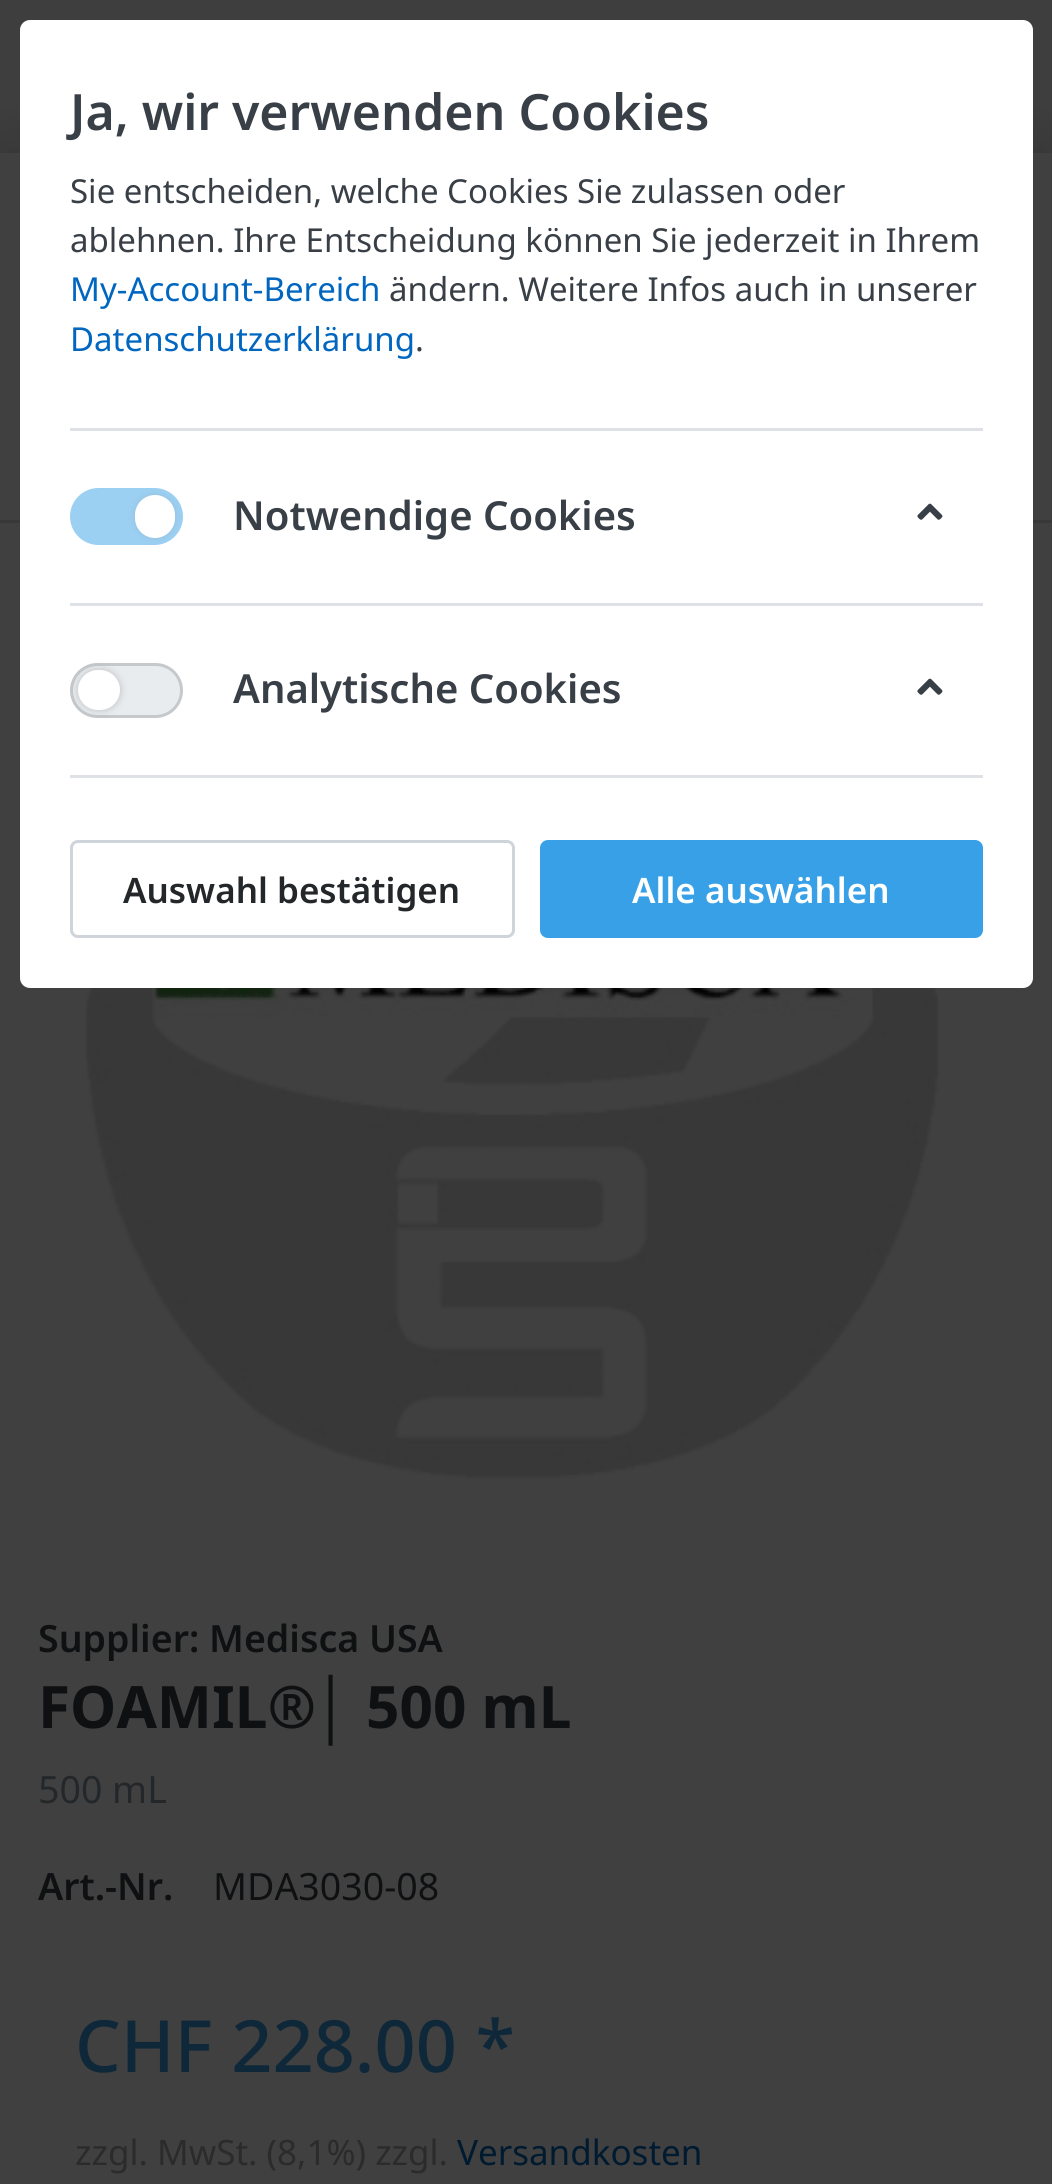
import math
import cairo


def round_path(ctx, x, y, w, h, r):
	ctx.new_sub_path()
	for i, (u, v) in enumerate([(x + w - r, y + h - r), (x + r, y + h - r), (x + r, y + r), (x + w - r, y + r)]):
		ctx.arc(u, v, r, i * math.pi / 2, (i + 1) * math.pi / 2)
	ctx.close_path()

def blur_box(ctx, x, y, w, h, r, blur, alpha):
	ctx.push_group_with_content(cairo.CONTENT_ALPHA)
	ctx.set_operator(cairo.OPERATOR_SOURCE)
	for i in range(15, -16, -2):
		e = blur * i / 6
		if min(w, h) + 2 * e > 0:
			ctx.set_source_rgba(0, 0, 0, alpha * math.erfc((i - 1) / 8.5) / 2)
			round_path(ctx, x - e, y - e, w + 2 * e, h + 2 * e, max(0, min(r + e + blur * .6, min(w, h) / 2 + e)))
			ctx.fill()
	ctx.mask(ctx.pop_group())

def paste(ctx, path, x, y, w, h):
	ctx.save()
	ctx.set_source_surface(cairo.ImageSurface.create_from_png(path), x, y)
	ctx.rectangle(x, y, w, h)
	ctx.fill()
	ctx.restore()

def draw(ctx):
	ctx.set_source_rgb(0.243, 0.243, 0.243)
	ctx.paint()
	ctx.set_source_rgb(0, 0, 0)
	blur_box(ctx, 0, 153, 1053, 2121, 0, 30, 0.2)
	ctx.set_source_rgb(0.251, 0.251, 0.251)
	ctx.rectangle(0, 153, 1052, 2031)
	ctx.fill()
	ctx.set_source_rgb(0.22, 0.22, 0.22)
	ctx.rectangle(0, 520, 1052, 3)
	ctx.fill()
	ctx.set_source_rgb(1, 1, 1)
	round_path(ctx, 20, 20, 1013, 968, 10)
	ctx.fill()
	ctx.select_font_face('Noto Sans SemiBold')
	ctx.set_font_size(50)
	ctx.set_source_rgb(0.224, 0.247, 0.275)
	ctx.move_to(70, 130)
	ctx.show_text('Ja, wir verwenden Cookies')
	ctx.select_font_face('Noto Sans')
	ctx.set_font_size(33)
	ctx.move_to(70, 203)
	ctx.show_text('Sie entscheiden, welche Cookies Sie zulassen oder')
	ctx.move_to(70, 252)
	ctx.show_text('ablehnen. Ihre Entscheidung können Sie jederzeit in Ihrem')
	ctx.set_source_rgb(0, 0.4, 0.753)
	ctx.move_to(70, 301)
	ctx.show_text('My-Account-Bereich')
	ctx.set_source_rgb(0.224, 0.247, 0.275)
	ctx.move_to(389, 301)
	ctx.show_text('ändern. Weitere Infos auch in unserer')
	ctx.set_source_rgb(0, 0.4, 0.753)
	ctx.move_to(70, 351)
	ctx.show_text('Datenschutzerklärung')
	ctx.set_source_rgb(0.224, 0.247, 0.275)
	ctx.move_to(415, 351)
	ctx.show_text('.')
	ctx.set_source_rgb(0.871, 0.886, 0.902)
	ctx.rectangle(70, 428, 913, 3)
	ctx.fill()
	ctx.rectangle(70, 603, 913, 3)
	ctx.fill()
	ctx.set_source_rgb(0.608, 0.816, 0.953)
	round_path(ctx, 70, 488, 113, 57, 28.5)
	ctx.fill()
	ctx.set_source_rgb(0.502, 0.502, 0.502)
	blur_box(ctx, 135, 495, 40, 43, 20, 4, 0.2)
	ctx.set_source_rgb(1, 1, 1)
	round_path(ctx, 135, 495, 40, 43, 20)
	ctx.fill()
	ctx.select_font_face('Noto Sans SemiBold')
	ctx.set_font_size(40)
	ctx.set_source_rgb(0.224, 0.247, 0.275)
	ctx.move_to(233, 530)
	ctx.show_text('Notwendige Cookies')
	paste(ctx, 'media/1.png', 917, 503, 26, 17)
	ctx.set_source_rgb(0.871, 0.886, 0.902)
	ctx.rectangle(70, 775, 913, 3)
	ctx.fill()
	ctx.set_source_rgb(0.914, 0.925, 0.937)
	round_path(ctx, 70, 663, 113, 55, 27.5)
	ctx.fill()
	round_path(ctx, 71.5, 664.5, 110, 52, 26)
	ctx.set_source_rgba(0, 0, 0, 0.15)
	ctx.set_line_width(3)
	ctx.stroke()
	ctx.set_source_rgb(0, 0, 0)
	blur_box(ctx, 78, 670, 42, 40, 20, 4, 0.2)
	ctx.set_source_rgb(1, 1, 1)
	round_path(ctx, 78, 670, 42, 40, 20)
	ctx.fill()
	ctx.set_source_rgb(0.224, 0.247, 0.275)
	ctx.move_to(233, 703)
	ctx.show_text('Analytische Cookies')
	paste(ctx, 'media/1.png', 917, 678, 26, 17)
	round_path(ctx, 71.5, 841.5, 442, 95, 6.5)
	ctx.set_source_rgb(0.808, 0.831, 0.855)
	ctx.stroke()
	ctx.set_font_size(35)
	ctx.set_source_rgb(0.137, 0.153, 0.165)
	ctx.move_to(123, 903)
	ctx.show_text('Auswahl bestätigen')
	ctx.set_source_rgb(0.216, 0.627, 0.902)
	round_path(ctx, 541.5, 841.5, 440, 95, 6.5)
	ctx.fill_preserve()
	ctx.stroke()
	ctx.set_source_rgb(1, 1, 1)
	ctx.move_to(632, 903)
	ctx.show_text('Alle auswählen')
	paste(ctx, 'media/2.png', 85, 988, 854, 492)
	ctx.set_font_size(37.5)
	ctx.set_source_rgb(0.055, 0.063, 0.071)
	ctx.move_to(38, 1652)
	ctx.show_text('Supplier: Medisca USA')
	ctx.select_font_face('Noto Sans', cairo.FONT_SLANT_NORMAL, cairo.FONT_WEIGHT_BOLD)
	ctx.set_font_size(58.5)
	ctx.move_to(38, 1728)
	ctx.show_text('FOAMIL®')
	ctx.select_font_face('Liberation Sans', cairo.FONT_SLANT_NORMAL, cairo.FONT_WEIGHT_BOLD)
	ctx.move_to(315, 1728)
	ctx.show_text('│')
	ctx.select_font_face('Noto Sans', cairo.FONT_SLANT_NORMAL, cairo.FONT_WEIGHT_BOLD)
	ctx.move_to(366, 1728)
	ctx.show_text('500 mL')
	ctx.select_font_face('Noto Sans')
	ctx.set_font_size(37.5)
	ctx.set_source_rgb(0.137, 0.153, 0.165)
	ctx.move_to(38, 1803)
	ctx.show_text('500 mL')
	ctx.select_font_face('Noto Sans SemiBold')
	ctx.set_source_rgb(0.055, 0.063, 0.071)
	ctx.move_to(38, 1900)
	ctx.show_text('Art.-Nr.')
	ctx.select_font_face('Noto Sans')
	ctx.move_to(213, 1900)
	ctx.show_text('MDA3030-08')
	ctx.select_font_face('Noto Sans Medium')
	ctx.set_font_size(72)
	ctx.set_source_rgb(0.055, 0.157, 0.227)
	ctx.move_to(75, 2072)
	ctx.show_text('CHF 228.00 *')
	ctx.select_font_face('Noto Sans')
	ctx.set_font_size(35)
	ctx.set_source_rgb(0.169, 0.169, 0.173)
	ctx.move_to(75, 2165)
	ctx.show_text('zzgl. MwSt. (8,1%) zzgl.')
	ctx.set_source_rgb(0, 0.102, 0.188)
	ctx.move_to(457, 2165)
	ctx.show_text('Versandkosten')


surface = cairo.ImageSurface(cairo.FORMAT_RGB24, 1052, 2184)
ctx = cairo.Context(surface)
options = cairo.FontOptions()
options.set_hint_metrics(cairo.HINT_METRICS_OFF)
options.set_hint_style(cairo.HINT_STYLE_NONE)
ctx.set_font_options(options)
ctx.set_miter_limit(4)
draw(ctx)
surface.write_to_png('image.png')
